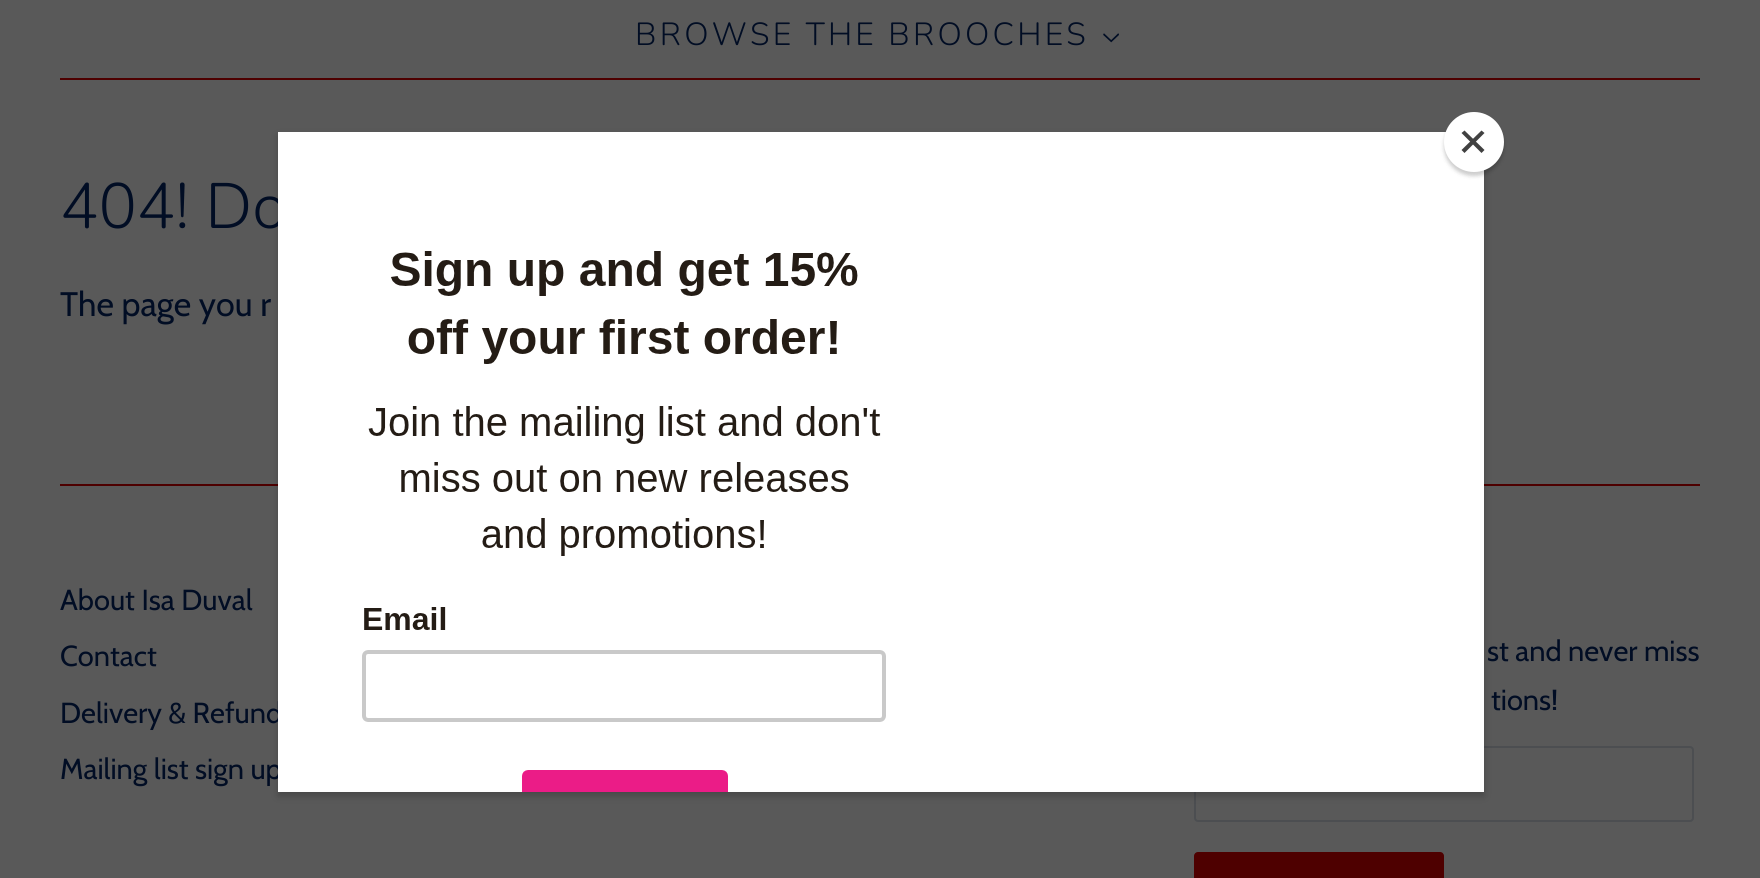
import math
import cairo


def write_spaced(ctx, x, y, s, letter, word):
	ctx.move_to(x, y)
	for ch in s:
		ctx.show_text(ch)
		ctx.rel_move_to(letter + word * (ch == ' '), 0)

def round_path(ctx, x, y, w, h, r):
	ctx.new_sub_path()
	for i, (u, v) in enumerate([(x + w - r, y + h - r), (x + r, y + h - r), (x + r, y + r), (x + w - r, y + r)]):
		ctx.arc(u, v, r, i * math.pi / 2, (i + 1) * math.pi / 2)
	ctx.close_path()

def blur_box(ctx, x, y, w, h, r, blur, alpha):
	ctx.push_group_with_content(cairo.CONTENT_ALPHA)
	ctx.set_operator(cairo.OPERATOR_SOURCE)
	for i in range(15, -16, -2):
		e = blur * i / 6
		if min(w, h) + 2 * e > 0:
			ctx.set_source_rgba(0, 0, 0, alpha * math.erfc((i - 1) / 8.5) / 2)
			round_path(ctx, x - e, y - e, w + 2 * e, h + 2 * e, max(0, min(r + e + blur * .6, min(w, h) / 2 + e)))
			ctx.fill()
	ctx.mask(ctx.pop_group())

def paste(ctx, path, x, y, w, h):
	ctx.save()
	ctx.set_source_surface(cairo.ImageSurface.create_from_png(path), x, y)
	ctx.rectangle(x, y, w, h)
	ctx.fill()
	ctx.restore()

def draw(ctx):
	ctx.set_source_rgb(0.349, 0.349, 0.349)
	ctx.paint()
	ctx.set_source_rgb(0.306, 0, 0)
	ctx.rectangle(60, 78, 1640, 2)
	ctx.fill()
	ctx.select_font_face('Nunito Light')
	ctx.set_font_size(32)
	ctx.set_source_rgb(0.004, 0.051, 0.141)
	write_spaced(ctx, 635, 45, 'BROWSE THE BROOCHES', 3.25, 0)
	paste(ctx, 'media/1.png', 1103, 33, 16, 10)
	ctx.set_font_size(64)
	ctx.move_to(60, 228)
	ctx.show_text('404! Do')
	ctx.select_font_face('Cabin')
	ctx.set_font_size(34)
	ctx.move_to(60, 316)
	ctx.show_text('The page you r')
	ctx.set_source_rgb(0.306, 0, 0)
	ctx.rectangle(60, 484, 1640, 2)
	ctx.fill()
	round_path(ctx, 1195, 747, 498, 74, 3)
	ctx.set_source_rgb(0.298, 0.306, 0.318)
	ctx.stroke()
	ctx.set_source_rgb(0, 0, 0)
	blur_box(ctx, 278, 136, 1206, 660, 0, 4, 0.2)
	ctx.set_font_size(29)
	ctx.set_source_rgb(0.004, 0.051, 0.141)
	ctx.move_to(60, 723)
	ctx.show_text('Delivery & Refund')
	ctx.move_to(60, 779)
	ctx.show_text('Mailing list sign up')
	paste(ctx, 'media/2.png', 278, 132, 1206, 660)
	ctx.set_source_rgb(0, 0, 0)
	blur_box(ctx, 1444, 116, 60, 60, 30, 2, 0.2)
	ctx.set_source_rgb(1, 1, 1)
	ctx.arc(1474, 142, 30, 0, 2 * math.pi)
	ctx.fill()
	ctx.set_source_rgb(0.255, 0.255, 0.255)
	ctx.new_path()
	ctx.move_to(1481.5, 130.5)
	ctx.line_to(1484.5, 133)
	ctx.line_to(1464.5, 153)
	ctx.line_to(1461.5, 150)
	ctx.close_path()
	ctx.fill()
	ctx.new_path()
	ctx.move_to(1461.5, 133)
	ctx.line_to(1464.5, 130.5)
	ctx.line_to(1484.5, 150)
	ctx.line_to(1481.5, 153)
	ctx.close_path()
	ctx.fill()
	ctx.set_source_rgb(0.004, 0.051, 0.141)
	for x, y, s in [
		(60, 610, 'About Isa Duval'),
		(60, 666, 'Contact'),
		(1487, 661, 'st and never miss'),
		(1491, 710, 'tions!'),
	]:
		ctx.move_to(x, y)
		ctx.show_text(s)
	ctx.set_source_rgb(0.306, 0, 0)
	round_path(ctx, 1194, 852, 250, 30, 4)
	ctx.fill()


surface = cairo.ImageSurface(cairo.FORMAT_RGB24, 1760, 878)
ctx = cairo.Context(surface)
options = cairo.FontOptions()
options.set_hint_metrics(cairo.HINT_METRICS_OFF)
options.set_hint_style(cairo.HINT_STYLE_NONE)
ctx.set_font_options(options)
ctx.set_miter_limit(4)
draw(ctx)
surface.write_to_png('image.png')
